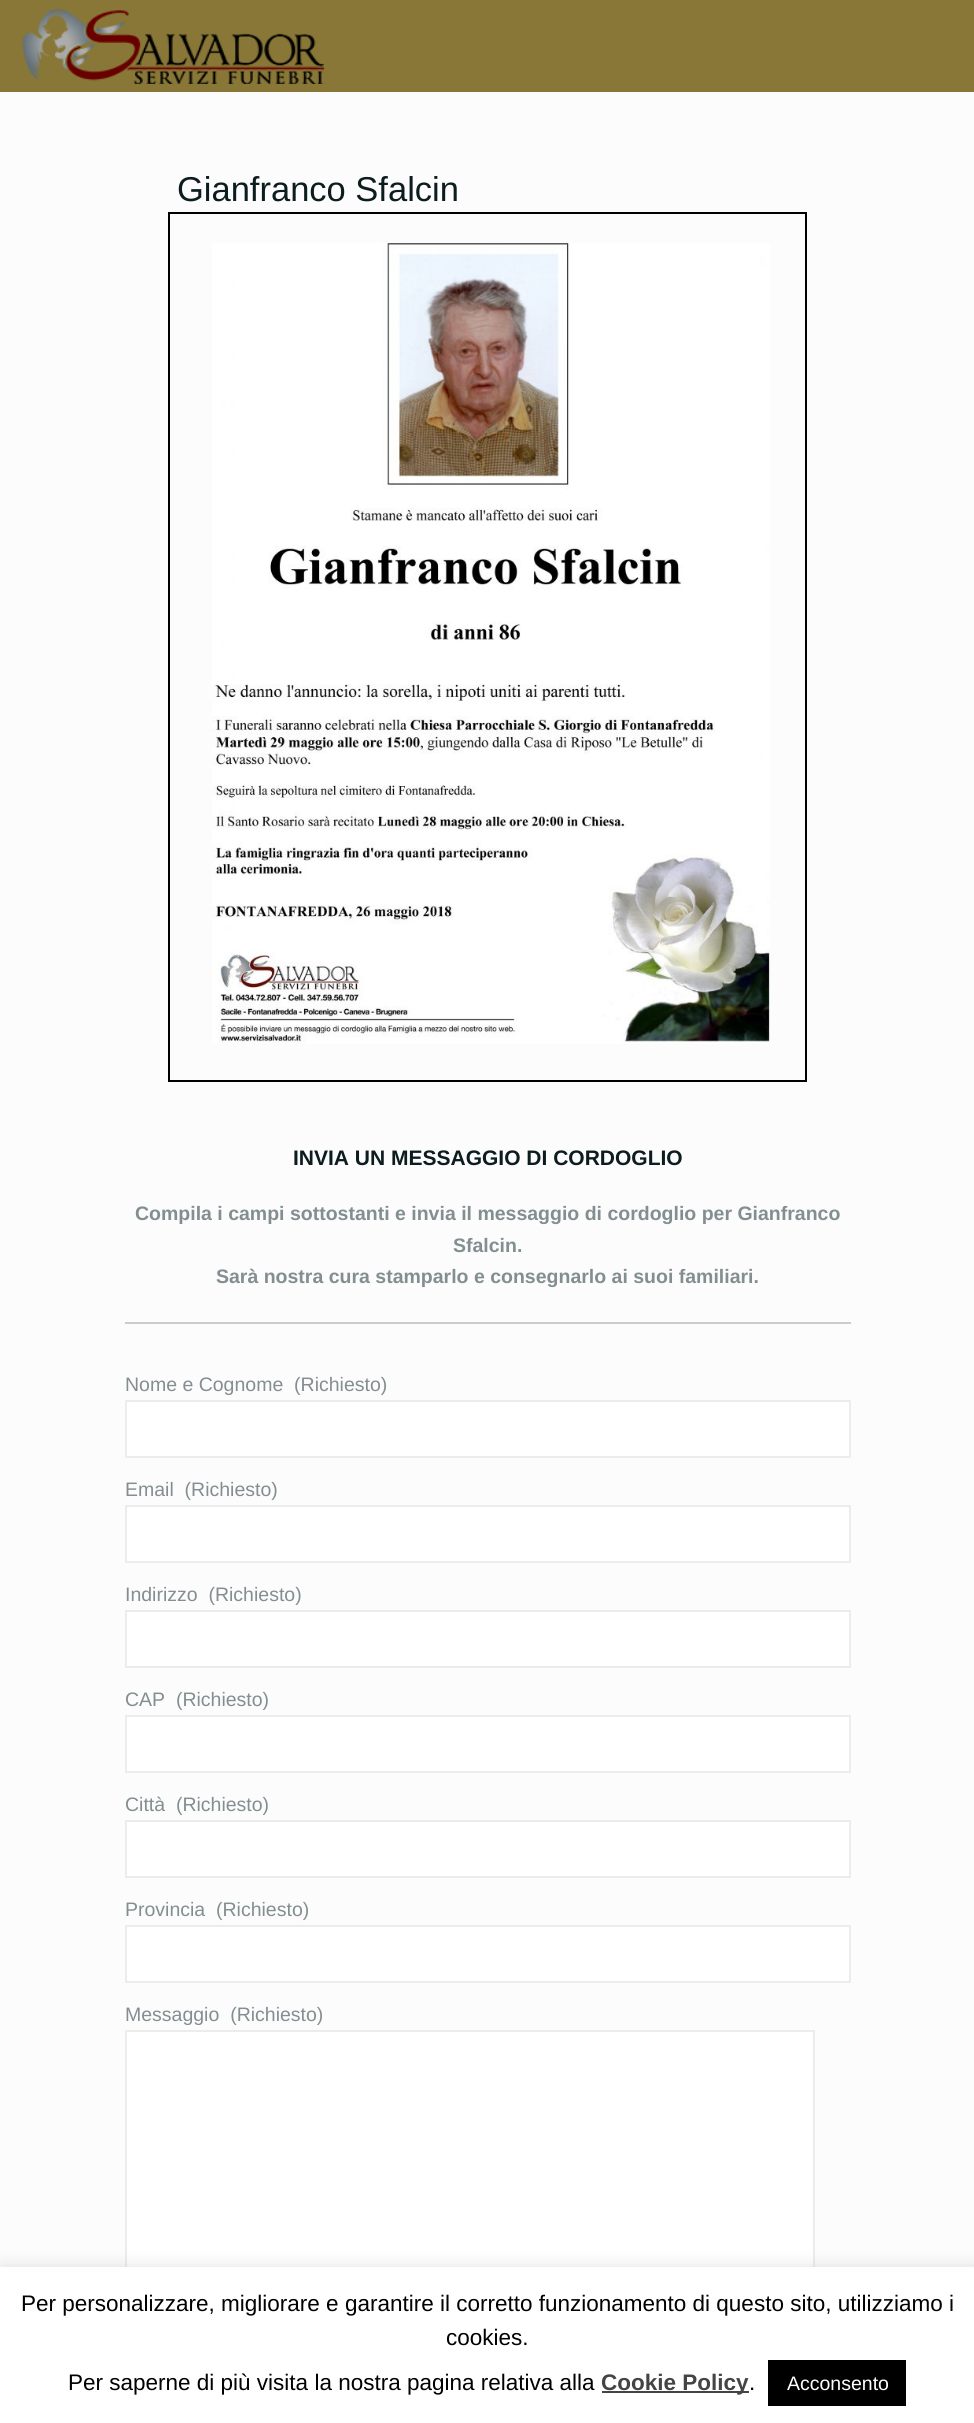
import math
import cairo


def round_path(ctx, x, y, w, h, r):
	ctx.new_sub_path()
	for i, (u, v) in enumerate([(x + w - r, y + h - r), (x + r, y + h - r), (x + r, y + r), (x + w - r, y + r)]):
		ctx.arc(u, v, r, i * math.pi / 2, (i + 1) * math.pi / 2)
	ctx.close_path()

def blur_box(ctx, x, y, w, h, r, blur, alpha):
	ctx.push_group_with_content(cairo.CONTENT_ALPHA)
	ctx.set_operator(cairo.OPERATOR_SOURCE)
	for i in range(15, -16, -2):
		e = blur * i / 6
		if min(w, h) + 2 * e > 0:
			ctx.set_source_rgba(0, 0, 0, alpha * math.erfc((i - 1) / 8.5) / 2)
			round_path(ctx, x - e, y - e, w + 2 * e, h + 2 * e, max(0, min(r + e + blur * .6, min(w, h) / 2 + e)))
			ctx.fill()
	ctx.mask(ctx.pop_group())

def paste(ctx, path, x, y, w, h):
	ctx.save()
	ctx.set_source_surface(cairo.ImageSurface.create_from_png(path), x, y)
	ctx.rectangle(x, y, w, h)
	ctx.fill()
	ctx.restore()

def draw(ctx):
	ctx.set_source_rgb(0.988, 0.988, 0.988)
	ctx.paint()
	ctx.set_source_rgb(0.533, 0.467, 0.212)
	ctx.rectangle(0, 0, 974, 92)
	ctx.fill()
	paste(ctx, 'media/1.png', 22, 9, 302, 75)
	ctx.select_font_face('Liberation Sans')
	ctx.set_font_size(34.5)
	ctx.set_source_rgb(0.047, 0.11, 0.122)
	ctx.move_to(177, 201)
	ctx.show_text('Gianfranco Sfalcin')
	ctx.rectangle(169, 213, 637, 868)
	ctx.set_source_rgb(0, 0, 0)
	ctx.stroke()
	paste(ctx, 'media/2.png', 212, 243, 558, 801)
	ctx.select_font_face('Liberation Sans', cairo.FONT_SLANT_NORMAL, cairo.FONT_WEIGHT_BOLD)
	ctx.set_font_size(21)
	ctx.set_source_rgb(0.047, 0.11, 0.122)
	ctx.move_to(293, 1165)
	ctx.show_text('INVIA UN MESSAGGIO DI CORDOGLIO')
	ctx.set_source_rgb(0.8, 0.8, 0.8)
	ctx.rectangle(125, 1322, 726, 2)
	ctx.fill()
	ctx.set_font_size(19.5)
	ctx.set_source_rgb(0.514, 0.557, 0.569)
	for x, y, s in [
		(135, 1220, 'Compila i campi sottostanti e invia il messaggio di cordoglio per Gianfranco'),
		(453, 1252, 'Sfalcin.'),
		(216, 1283, 'Sarà nostra cura stamparlo e consegnarlo ai suoi familiari.'),
	]:
		ctx.move_to(x, y)
		ctx.show_text(s)
	ctx.select_font_face('Liberation Sans')
	ctx.move_to(125, 1391)
	ctx.show_text('Nome e Cognome  (Richiesto)')
	ctx.set_source_rgb(1, 1, 1)
	ctx.rectangle(126, 1401, 724, 56)
	ctx.fill_preserve()
	ctx.set_source_rgb(0.922, 0.922, 0.922)
	ctx.stroke()
	ctx.set_source_rgb(0.514, 0.557, 0.569)
	ctx.move_to(125, 1496)
	ctx.show_text('Email  (Richiesto)')
	ctx.set_source_rgb(1, 1, 1)
	ctx.rectangle(126, 1506, 724, 56)
	ctx.fill_preserve()
	ctx.set_source_rgb(0.922, 0.922, 0.922)
	ctx.stroke()
	ctx.set_source_rgb(0.514, 0.557, 0.569)
	ctx.move_to(125, 1601)
	ctx.show_text('Indirizzo  (Richiesto)')
	ctx.set_source_rgb(1, 1, 1)
	ctx.rectangle(126, 1611, 724, 56)
	ctx.fill_preserve()
	ctx.set_source_rgb(0.922, 0.922, 0.922)
	ctx.stroke()
	ctx.set_source_rgb(0.514, 0.557, 0.569)
	ctx.move_to(125, 1706)
	ctx.show_text('CAP  (Richiesto)')
	ctx.set_source_rgb(1, 1, 1)
	ctx.rectangle(126, 1716, 724, 56)
	ctx.fill_preserve()
	ctx.set_source_rgb(0.922, 0.922, 0.922)
	ctx.stroke()
	ctx.set_source_rgb(0.514, 0.557, 0.569)
	ctx.move_to(125, 1811)
	ctx.show_text('Città  (Richiesto)')
	ctx.set_source_rgb(1, 1, 1)
	ctx.rectangle(126, 1821, 724, 56)
	ctx.fill_preserve()
	ctx.set_source_rgb(0.922, 0.922, 0.922)
	ctx.stroke()
	ctx.set_source_rgb(0.514, 0.557, 0.569)
	ctx.move_to(125, 1916)
	ctx.show_text('Provincia  (Richiesto)')
	ctx.set_source_rgb(1, 1, 1)
	ctx.rectangle(126, 1926, 724, 56)
	ctx.fill_preserve()
	ctx.set_source_rgb(0.922, 0.922, 0.922)
	ctx.stroke()
	ctx.set_source_rgb(0.514, 0.557, 0.569)
	ctx.move_to(125, 2021)
	ctx.show_text('Messaggio  (Richiesto)')
	ctx.set_source_rgb(1, 1, 1)
	ctx.rectangle(127, 2032, 686, 235)
	ctx.fill()
	ctx.rectangle(126, 2031, 688, 298)
	ctx.set_source_rgb(0.922, 0.922, 0.922)
	ctx.stroke()
	ctx.set_source_rgb(0.675, 0.671, 0.671)
	blur_box(ctx, 0, 2265, 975, 158, 0, 7.5, 0.3)
	ctx.set_source_rgb(1, 1, 1)
	ctx.rectangle(0, 2267, 974, 156)
	ctx.fill()
	ctx.set_font_size(22.5)
	ctx.set_source_rgb(0, 0, 0)
	for x, y, s in [
		(21, 2311, 'Per personalizzare, migliorare e garantire il corretto funzionamento di questo sito, utilizziamo i'),
		(446, 2345, 'cookies.'),
		(68, 2390, 'Per saperne di più visita la nostra pagina relativa alla'),
	]:
		ctx.move_to(x, y)
		ctx.show_text(s)
	ctx.set_source_rgb(0.267, 0.267, 0.267)
	ctx.rectangle(602, 2391, 147, 2)
	ctx.fill()
	ctx.select_font_face('Liberation Sans', cairo.FONT_SLANT_NORMAL, cairo.FONT_WEIGHT_BOLD)
	ctx.move_to(601, 2390)
	ctx.show_text('Cookie Policy')
	ctx.select_font_face('Liberation Sans')
	ctx.set_source_rgb(0, 0, 0)
	ctx.move_to(749, 2390)
	ctx.show_text('.')
	ctx.rectangle(768, 2360, 138, 46)
	ctx.fill()
	ctx.set_font_size(19.5)
	ctx.set_source_rgb(1, 1, 1)
	ctx.move_to(787, 2390)
	ctx.show_text('Acconsento')


surface = cairo.ImageSurface(cairo.FORMAT_RGB24, 974, 2423)
ctx = cairo.Context(surface)
options = cairo.FontOptions()
options.set_hint_metrics(cairo.HINT_METRICS_OFF)
options.set_hint_style(cairo.HINT_STYLE_NONE)
ctx.set_font_options(options)
ctx.set_miter_limit(4)
draw(ctx)
surface.write_to_png('image.png')
